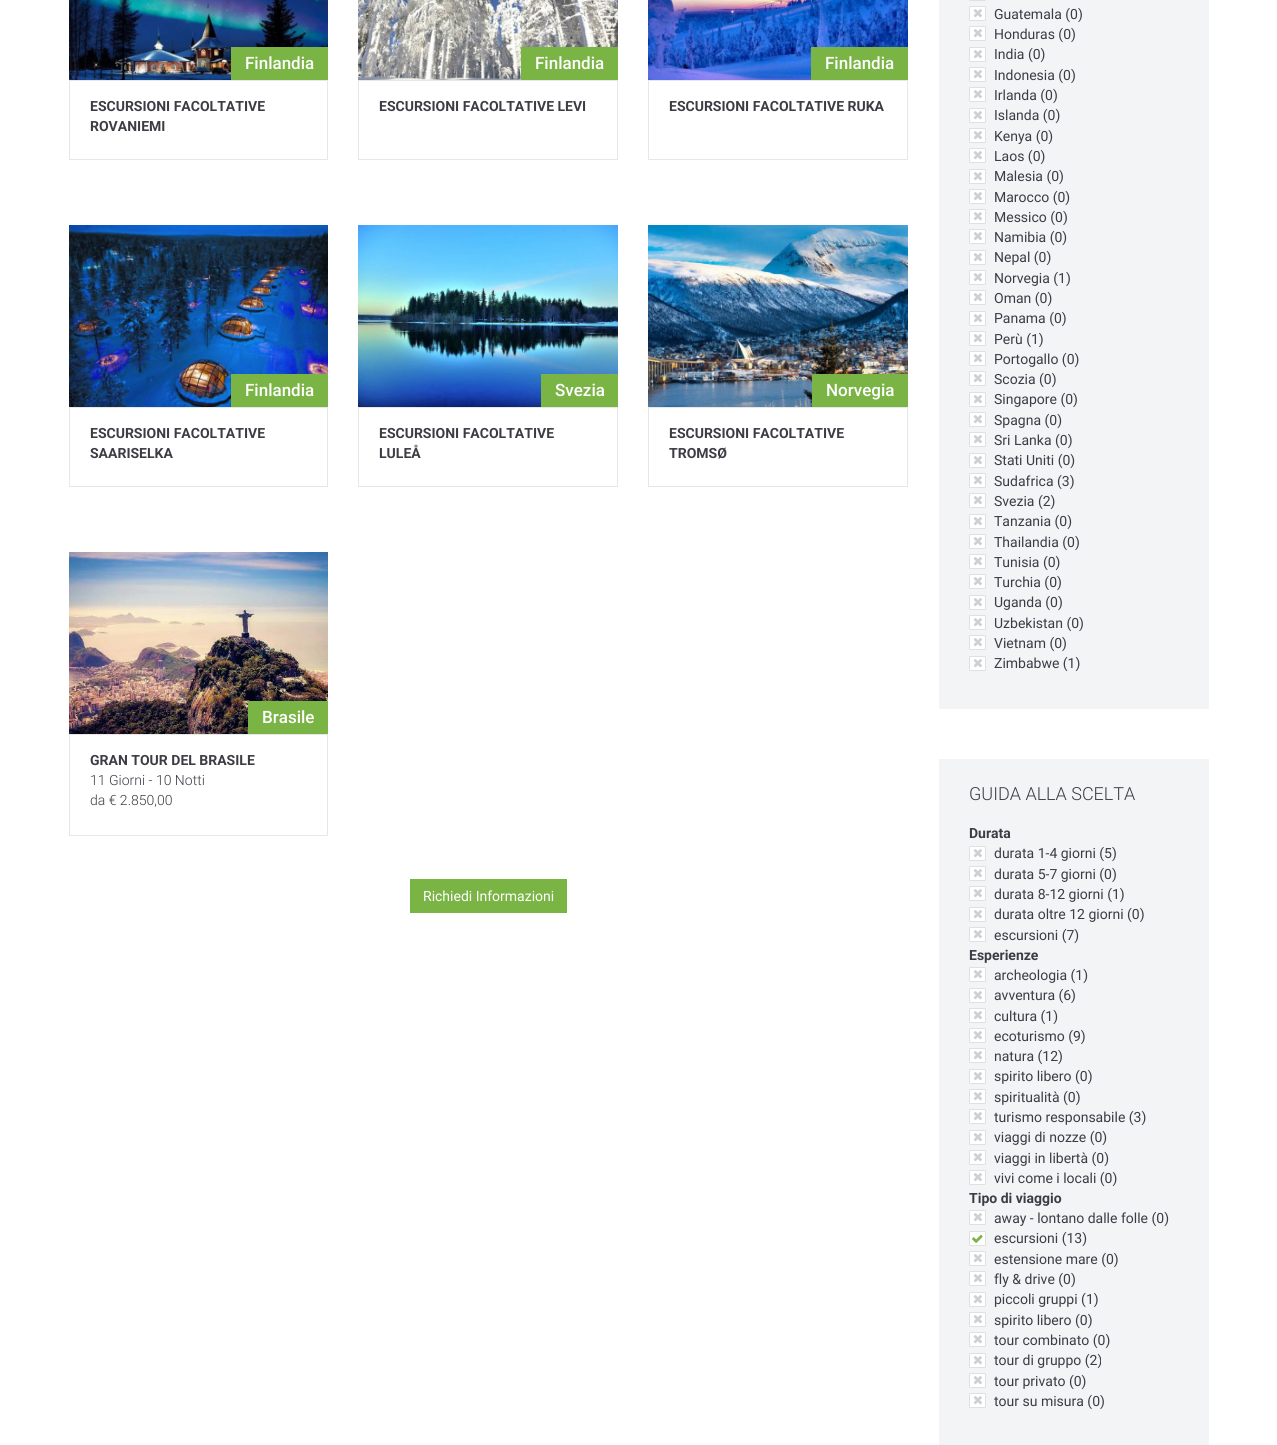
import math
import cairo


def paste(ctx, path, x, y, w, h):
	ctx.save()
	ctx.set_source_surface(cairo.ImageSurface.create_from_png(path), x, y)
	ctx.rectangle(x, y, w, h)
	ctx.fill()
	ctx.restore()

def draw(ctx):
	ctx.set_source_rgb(1, 1, 1)
	ctx.paint()
	paste(ctx, 'media/1.png', 69, 0, 259, 80)
	ctx.set_source_rgb(0.475, 0.706, 0.271)
	ctx.rectangle(231, 47, 97, 33)
	ctx.fill()
	ctx.select_font_face('Roboto Medium')
	ctx.set_font_size(17)
	ctx.set_source_rgb(1, 1, 1)
	ctx.move_to(245, 69)
	ctx.show_text('Finlandia')
	ctx.rectangle(69.5, 80.5, 258, 79)
	ctx.set_source_rgb(0.906, 0.906, 0.906)
	ctx.set_line_width(1)
	ctx.stroke()
	ctx.select_font_face('Roboto', cairo.FONT_SLANT_NORMAL, cairo.FONT_WEIGHT_BOLD)
	ctx.set_font_size(14)
	ctx.set_source_rgb(0.235, 0.235, 0.267)
	ctx.move_to(90, 111)
	ctx.show_text('ESCURSIONI FACOLTATIVE')
	ctx.move_to(90, 131)
	ctx.show_text('ROVANIEMI')
	paste(ctx, 'media/2.png', 358, 0, 260, 80)
	ctx.set_source_rgb(0.475, 0.706, 0.271)
	ctx.rectangle(521, 47, 97, 33)
	ctx.fill()
	ctx.select_font_face('Roboto Medium')
	ctx.set_font_size(17)
	ctx.set_source_rgb(1, 1, 1)
	ctx.move_to(535, 69)
	ctx.show_text('Finlandia')
	ctx.rectangle(358.5, 80.5, 259, 79)
	ctx.set_source_rgb(0.906, 0.906, 0.906)
	ctx.stroke()
	ctx.select_font_face('Roboto', cairo.FONT_SLANT_NORMAL, cairo.FONT_WEIGHT_BOLD)
	ctx.set_font_size(14)
	ctx.set_source_rgb(0.235, 0.235, 0.267)
	ctx.move_to(379, 111)
	ctx.show_text('ESCURSIONI FACOLTATIVE LEVI')
	paste(ctx, 'media/3.png', 648, 0, 260, 80)
	ctx.set_source_rgb(0.475, 0.706, 0.271)
	ctx.rectangle(811, 47, 97, 33)
	ctx.fill()
	ctx.select_font_face('Roboto Medium')
	ctx.set_font_size(17)
	ctx.set_source_rgb(1, 1, 1)
	ctx.move_to(825, 69)
	ctx.show_text('Finlandia')
	ctx.rectangle(648.5, 80.5, 259, 79)
	ctx.set_source_rgb(0.906, 0.906, 0.906)
	ctx.stroke()
	ctx.select_font_face('Roboto', cairo.FONT_SLANT_NORMAL, cairo.FONT_WEIGHT_BOLD)
	ctx.set_font_size(14)
	ctx.set_source_rgb(0.235, 0.235, 0.267)
	ctx.move_to(669, 111)
	ctx.show_text('ESCURSIONI FACOLTATIVE RUKA')
	paste(ctx, 'media/4.png', 69, 225, 259, 182)
	ctx.set_source_rgb(0.475, 0.706, 0.271)
	ctx.rectangle(231, 374, 97, 33)
	ctx.fill()
	ctx.select_font_face('Roboto Medium')
	ctx.set_font_size(17)
	ctx.set_source_rgb(1, 1, 1)
	ctx.move_to(245, 396)
	ctx.show_text('Finlandia')
	ctx.rectangle(69.5, 407.5, 258, 79)
	ctx.set_source_rgb(0.906, 0.906, 0.906)
	ctx.stroke()
	ctx.select_font_face('Roboto', cairo.FONT_SLANT_NORMAL, cairo.FONT_WEIGHT_BOLD)
	ctx.set_font_size(14)
	ctx.set_source_rgb(0.235, 0.235, 0.267)
	ctx.move_to(90, 438)
	ctx.show_text('ESCURSIONI FACOLTATIVE')
	ctx.move_to(90, 458)
	ctx.show_text('SAARISELKA')
	paste(ctx, 'media/5.png', 358, 225, 260, 182)
	ctx.set_source_rgb(0.475, 0.706, 0.271)
	ctx.rectangle(541, 374, 77, 33)
	ctx.fill()
	ctx.select_font_face('Roboto Medium')
	ctx.set_font_size(17)
	ctx.set_source_rgb(1, 1, 1)
	ctx.move_to(555, 396)
	ctx.show_text('Svezia')
	ctx.rectangle(358.5, 407.5, 259, 79)
	ctx.set_source_rgb(0.906, 0.906, 0.906)
	ctx.stroke()
	ctx.select_font_face('Roboto', cairo.FONT_SLANT_NORMAL, cairo.FONT_WEIGHT_BOLD)
	ctx.set_font_size(14)
	ctx.set_source_rgb(0.235, 0.235, 0.267)
	ctx.move_to(379, 438)
	ctx.show_text('ESCURSIONI FACOLTATIVE')
	ctx.move_to(379, 458)
	ctx.show_text('LULEÅ')
	paste(ctx, 'media/6.png', 648, 225, 260, 182)
	ctx.set_source_rgb(0.475, 0.706, 0.271)
	ctx.rectangle(812, 374, 96, 33)
	ctx.fill()
	ctx.select_font_face('Roboto Medium')
	ctx.set_font_size(17)
	ctx.set_source_rgb(1, 1, 1)
	ctx.move_to(826, 396)
	ctx.show_text('Norvegia')
	ctx.rectangle(648.5, 407.5, 259, 79)
	ctx.set_source_rgb(0.906, 0.906, 0.906)
	ctx.stroke()
	ctx.select_font_face('Roboto', cairo.FONT_SLANT_NORMAL, cairo.FONT_WEIGHT_BOLD)
	ctx.set_font_size(14)
	ctx.set_source_rgb(0.235, 0.235, 0.267)
	ctx.move_to(669, 438)
	ctx.show_text('ESCURSIONI FACOLTATIVE')
	ctx.move_to(669, 458)
	ctx.show_text('TROMSØ')
	paste(ctx, 'media/7.png', 69, 552, 259, 182)
	ctx.set_source_rgb(0.475, 0.706, 0.271)
	ctx.rectangle(248, 701, 80, 33)
	ctx.fill()
	ctx.select_font_face('Roboto Medium')
	ctx.set_font_size(17)
	ctx.set_source_rgb(1, 1, 1)
	ctx.move_to(262, 723)
	ctx.show_text('Brasile')
	ctx.rectangle(69.5, 734.5, 258, 101)
	ctx.set_source_rgb(0.906, 0.906, 0.906)
	ctx.stroke()
	ctx.select_font_face('Roboto', cairo.FONT_SLANT_NORMAL, cairo.FONT_WEIGHT_BOLD)
	ctx.set_font_size(14)
	ctx.set_source_rgb(0.235, 0.235, 0.267)
	ctx.move_to(90, 765)
	ctx.show_text('GRAN TOUR DEL BRASILE')
	ctx.select_font_face('Roboto Light')
	ctx.move_to(90, 785)
	ctx.show_text('11 Giorni - 10 Notti')
	ctx.move_to(90, 805)
	ctx.show_text('da € 2.850,00')
	ctx.set_source_rgb(0.475, 0.706, 0.271)
	ctx.rectangle(410, 879, 157, 34)
	ctx.fill()
	ctx.select_font_face('Roboto')
	ctx.set_source_rgb(1, 1, 1)
	ctx.move_to(423, 901)
	ctx.show_text('Richiedi Informazioni')
	ctx.set_source_rgb(0.949, 0.957, 0.961)
	ctx.rectangle(939, 0, 270, 709)
	ctx.fill()
	paste(ctx, 'media/8.png', 969, 0, 17, 1)
	paste(ctx, 'media/9.png', 969, 6, 17, 15)
	ctx.set_source_rgb(0.235, 0.235, 0.267)
	ctx.move_to(994, 19)
	ctx.show_text('Guatemala (0)')
	paste(ctx, 'media/9.png', 969, 26, 17, 15)
	ctx.move_to(994, 39)
	ctx.show_text('Honduras (0)')
	paste(ctx, 'media/9.png', 969, 47, 17, 15)
	ctx.move_to(994, 59)
	ctx.show_text('India (0)')
	paste(ctx, 'media/9.png', 969, 67, 17, 15)
	ctx.move_to(994, 80)
	ctx.show_text('Indonesia (0)')
	paste(ctx, 'media/9.png', 969, 87, 17, 15)
	ctx.move_to(994, 100)
	ctx.show_text('Irlanda (0)')
	paste(ctx, 'media/9.png', 969, 108, 17, 15)
	ctx.move_to(994, 120)
	ctx.show_text('Islanda (0)')
	paste(ctx, 'media/9.png', 969, 128, 17, 15)
	ctx.move_to(994, 141)
	ctx.show_text('Kenya (0)')
	paste(ctx, 'media/9.png', 969, 148, 17, 15)
	ctx.move_to(994, 161)
	ctx.show_text('Laos (0)')
	paste(ctx, 'media/9.png', 969, 169, 17, 15)
	ctx.move_to(994, 181)
	ctx.show_text('Malesia (0)')
	paste(ctx, 'media/9.png', 969, 189, 17, 15)
	ctx.move_to(994, 202)
	ctx.show_text('Marocco (0)')
	paste(ctx, 'media/9.png', 969, 209, 17, 15)
	ctx.move_to(994, 222)
	ctx.show_text('Messico (0)')
	paste(ctx, 'media/9.png', 969, 229, 17, 15)
	ctx.move_to(994, 242)
	ctx.show_text('Namibia (0)')
	paste(ctx, 'media/9.png', 969, 250, 17, 15)
	ctx.move_to(994, 262)
	ctx.show_text('Nepal (0)')
	paste(ctx, 'media/9.png', 969, 270, 17, 15)
	ctx.move_to(994, 283)
	ctx.show_text('Norvegia (1)')
	paste(ctx, 'media/9.png', 969, 290, 17, 15)
	ctx.move_to(994, 303)
	ctx.show_text('Oman (0)')
	paste(ctx, 'media/9.png', 969, 311, 17, 15)
	ctx.move_to(994, 323)
	ctx.show_text('Panama (0)')
	paste(ctx, 'media/9.png', 969, 331, 17, 15)
	ctx.move_to(994, 344)
	ctx.show_text('Perù (1)')
	paste(ctx, 'media/9.png', 969, 351, 17, 15)
	ctx.move_to(994, 364)
	ctx.show_text('Portogallo (0)')
	paste(ctx, 'media/9.png', 969, 371, 17, 15)
	ctx.move_to(994, 384)
	ctx.show_text('Scozia (0)')
	paste(ctx, 'media/9.png', 969, 392, 17, 15)
	ctx.move_to(994, 404)
	ctx.show_text('Singapore (0)')
	paste(ctx, 'media/9.png', 969, 412, 17, 15)
	ctx.move_to(994, 425)
	ctx.show_text('Spagna (0)')
	paste(ctx, 'media/9.png', 969, 432, 17, 15)
	ctx.move_to(994, 445)
	ctx.show_text('Sri Lanka (0)')
	paste(ctx, 'media/9.png', 969, 453, 17, 15)
	ctx.move_to(994, 465)
	ctx.show_text('Stati Uniti (0)')
	paste(ctx, 'media/9.png', 969, 473, 17, 15)
	ctx.move_to(994, 486)
	ctx.show_text('Sudafrica (3)')
	paste(ctx, 'media/9.png', 969, 493, 17, 15)
	ctx.move_to(994, 506)
	ctx.show_text('Svezia (2)')
	paste(ctx, 'media/9.png', 969, 514, 17, 15)
	ctx.move_to(994, 526)
	ctx.show_text('Tanzania (0)')
	paste(ctx, 'media/9.png', 969, 534, 17, 15)
	ctx.move_to(994, 547)
	ctx.show_text('Thailandia (0)')
	paste(ctx, 'media/9.png', 969, 554, 17, 15)
	ctx.move_to(994, 567)
	ctx.show_text('Tunisia (0)')
	paste(ctx, 'media/9.png', 969, 574, 17, 15)
	ctx.move_to(994, 587)
	ctx.show_text('Turchia (0)')
	paste(ctx, 'media/9.png', 969, 595, 17, 15)
	ctx.move_to(994, 607)
	ctx.show_text('Uganda (0)')
	paste(ctx, 'media/9.png', 969, 615, 17, 15)
	ctx.move_to(994, 628)
	ctx.show_text('Uzbekistan (0)')
	paste(ctx, 'media/9.png', 969, 635, 17, 15)
	ctx.move_to(994, 648)
	ctx.show_text('Vietnam (0)')
	paste(ctx, 'media/9.png', 969, 656, 17, 15)
	ctx.move_to(994, 668)
	ctx.show_text('Zimbabwe (1)')
	ctx.set_source_rgb(0.949, 0.957, 0.961)
	ctx.rectangle(939, 759, 270, 686)
	ctx.fill()
	ctx.select_font_face('Roboto Light')
	ctx.set_font_size(18)
	ctx.set_source_rgb(0.235, 0.235, 0.267)
	ctx.move_to(969, 800)
	ctx.show_text('GUIDA ALLA SCELTA')
	ctx.select_font_face('Roboto', cairo.FONT_SLANT_NORMAL, cairo.FONT_WEIGHT_BOLD)
	ctx.set_font_size(14)
	ctx.move_to(969, 838)
	ctx.show_text('Durata')
	paste(ctx, 'media/9.png', 969, 846, 17, 15)
	ctx.select_font_face('Roboto')
	ctx.move_to(994, 858)
	ctx.show_text('durata 1-4 giorni (5)')
	paste(ctx, 'media/9.png', 969, 866, 17, 15)
	ctx.move_to(994, 879)
	ctx.show_text('durata 5-7 giorni (0)')
	paste(ctx, 'media/9.png', 969, 886, 17, 15)
	ctx.move_to(994, 899)
	ctx.show_text('durata 8-12 giorni (1)')
	paste(ctx, 'media/9.png', 969, 907, 17, 15)
	ctx.move_to(994, 919)
	ctx.show_text('durata oltre 12 giorni (0)')
	paste(ctx, 'media/9.png', 969, 927, 17, 15)
	ctx.move_to(994, 940)
	ctx.show_text('escursioni (7)')
	ctx.select_font_face('Roboto', cairo.FONT_SLANT_NORMAL, cairo.FONT_WEIGHT_BOLD)
	ctx.move_to(969, 960)
	ctx.show_text('Esperienze')
	paste(ctx, 'media/9.png', 969, 967, 17, 15)
	ctx.select_font_face('Roboto')
	ctx.move_to(994, 980)
	ctx.show_text('archeologia (1)')
	paste(ctx, 'media/9.png', 969, 988, 17, 15)
	ctx.move_to(994, 1000)
	ctx.show_text('avventura (6)')
	paste(ctx, 'media/9.png', 969, 1008, 17, 15)
	ctx.move_to(994, 1021)
	ctx.show_text('cultura (1)')
	paste(ctx, 'media/9.png', 969, 1028, 17, 15)
	ctx.move_to(994, 1041)
	ctx.show_text('ecoturismo (9)')
	paste(ctx, 'media/9.png', 969, 1048, 17, 15)
	ctx.move_to(994, 1061)
	ctx.show_text('natura (12)')
	paste(ctx, 'media/9.png', 969, 1069, 17, 15)
	ctx.move_to(994, 1081)
	ctx.show_text('spirito libero (0)')
	paste(ctx, 'media/9.png', 969, 1089, 17, 15)
	ctx.move_to(994, 1102)
	ctx.show_text('spiritualità (0)')
	paste(ctx, 'media/9.png', 969, 1109, 17, 15)
	ctx.move_to(994, 1122)
	ctx.show_text('turismo responsabile (3)')
	paste(ctx, 'media/9.png', 969, 1130, 17, 15)
	ctx.move_to(994, 1142)
	ctx.show_text('viaggi di nozze (0)')
	paste(ctx, 'media/9.png', 969, 1150, 17, 15)
	ctx.move_to(994, 1163)
	ctx.show_text('viaggi in libertà (0)')
	paste(ctx, 'media/9.png', 969, 1170, 17, 15)
	ctx.move_to(994, 1183)
	ctx.show_text('vivi come i locali (0)')
	ctx.select_font_face('Roboto', cairo.FONT_SLANT_NORMAL, cairo.FONT_WEIGHT_BOLD)
	ctx.move_to(969, 1203)
	ctx.show_text('Tipo di viaggio')
	paste(ctx, 'media/9.png', 969, 1210, 17, 15)
	ctx.select_font_face('Roboto')
	ctx.move_to(994, 1223)
	ctx.show_text('away - lontano dalle folle (0)')
	paste(ctx, 'media/10.png', 969, 1231, 17, 15)
	ctx.move_to(994, 1243)
	ctx.show_text('escursioni (13)')
	paste(ctx, 'media/9.png', 969, 1251, 17, 15)
	ctx.move_to(994, 1264)
	ctx.show_text('estensione mare (0)')
	paste(ctx, 'media/9.png', 969, 1271, 17, 15)
	ctx.move_to(994, 1284)
	ctx.show_text('fly & drive (0)')
	paste(ctx, 'media/9.png', 969, 1292, 17, 15)
	ctx.move_to(994, 1304)
	ctx.show_text('piccoli gruppi (1)')
	paste(ctx, 'media/9.png', 969, 1312, 17, 15)
	ctx.move_to(994, 1325)
	ctx.show_text('spirito libero (0)')
	paste(ctx, 'media/9.png', 969, 1332, 17, 15)
	ctx.move_to(994, 1345)
	ctx.show_text('tour combinato (0)')
	paste(ctx, 'media/9.png', 969, 1353, 17, 15)
	ctx.move_to(994, 1365)
	ctx.show_text('tour di gruppo (2)')
	paste(ctx, 'media/9.png', 969, 1373, 17, 15)
	ctx.move_to(994, 1386)
	ctx.show_text('tour privato (0)')
	paste(ctx, 'media/9.png', 969, 1393, 17, 15)
	ctx.move_to(994, 1406)
	ctx.show_text('tour su misura (0)')


surface = cairo.ImageSurface(cairo.FORMAT_RGB24, 1277, 1445)
ctx = cairo.Context(surface)
options = cairo.FontOptions()
options.set_hint_metrics(cairo.HINT_METRICS_OFF)
options.set_hint_style(cairo.HINT_STYLE_NONE)
ctx.set_font_options(options)
ctx.set_miter_limit(4)
draw(ctx)
surface.write_to_png('image.png')
